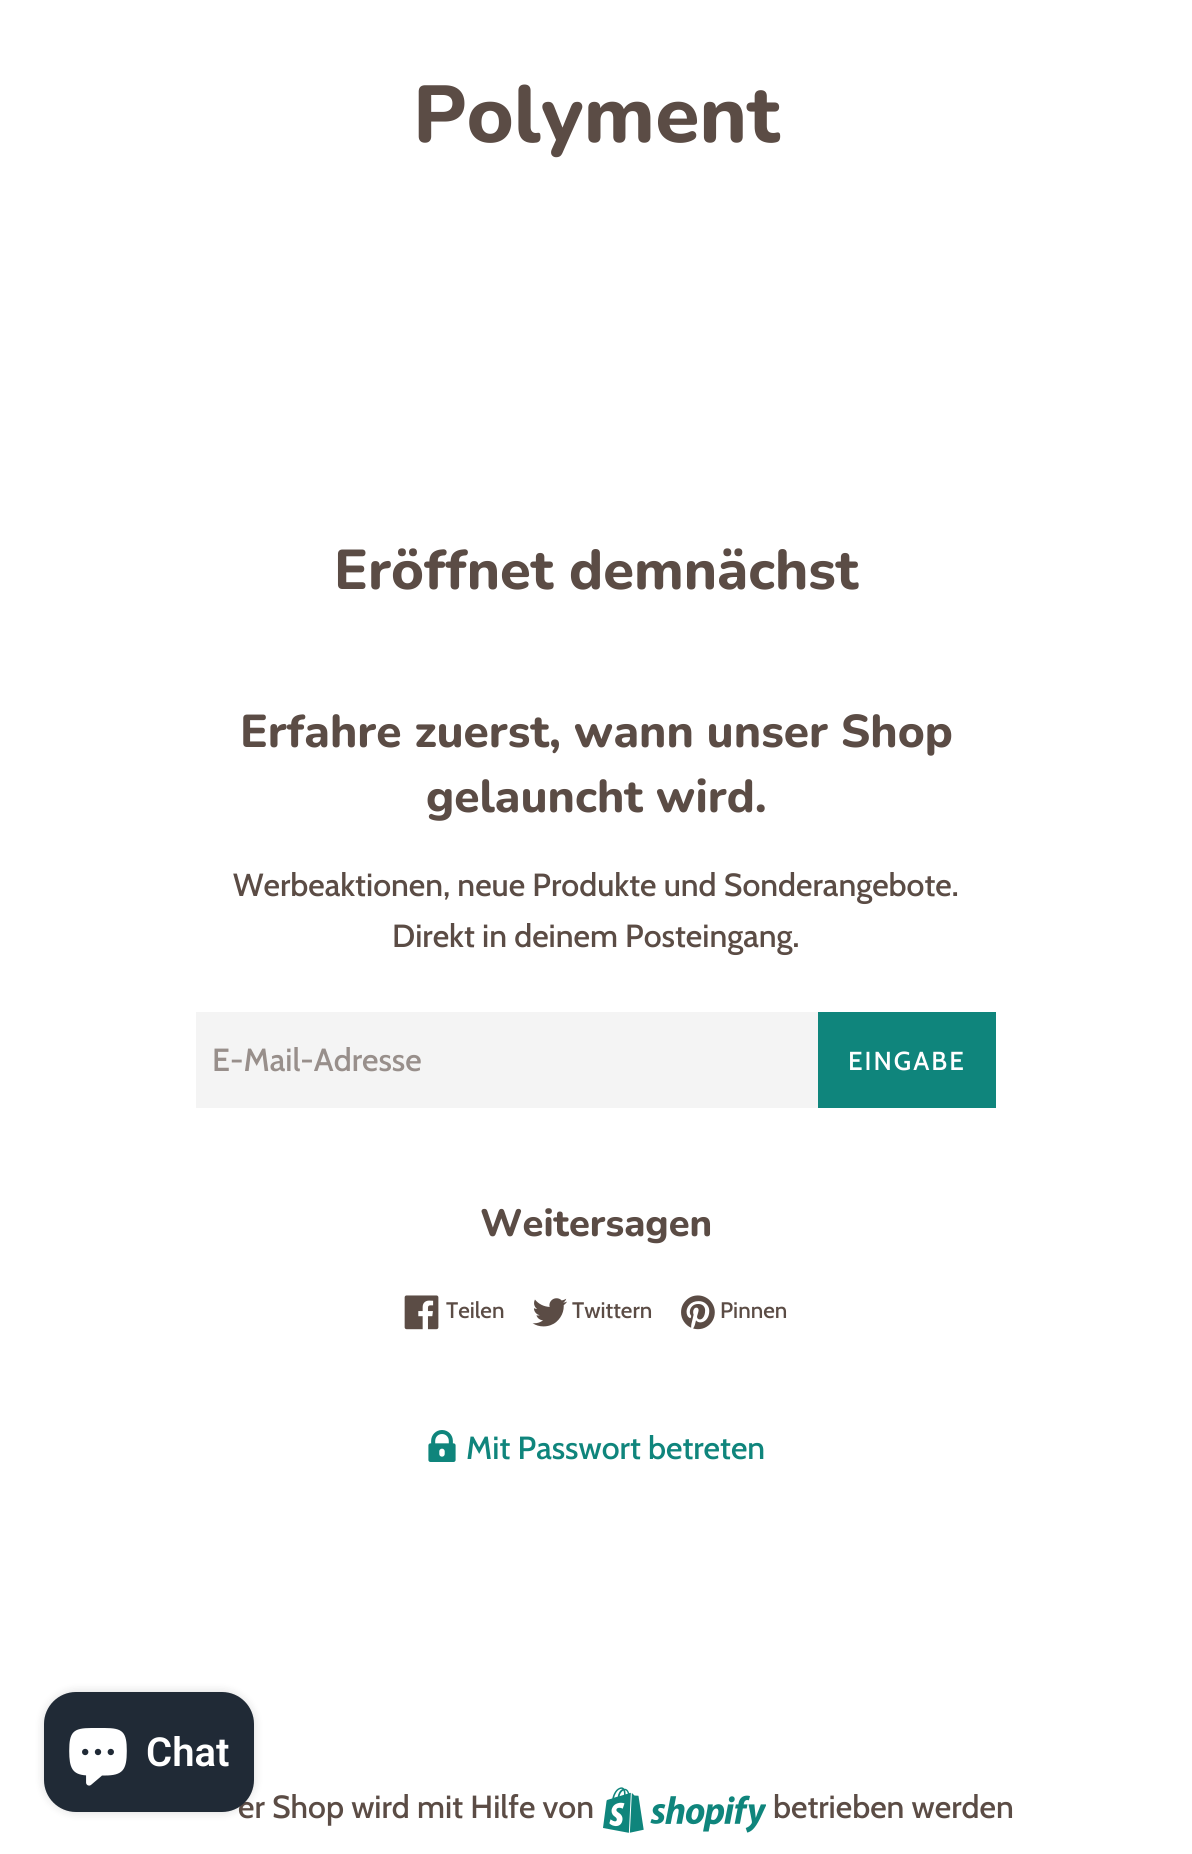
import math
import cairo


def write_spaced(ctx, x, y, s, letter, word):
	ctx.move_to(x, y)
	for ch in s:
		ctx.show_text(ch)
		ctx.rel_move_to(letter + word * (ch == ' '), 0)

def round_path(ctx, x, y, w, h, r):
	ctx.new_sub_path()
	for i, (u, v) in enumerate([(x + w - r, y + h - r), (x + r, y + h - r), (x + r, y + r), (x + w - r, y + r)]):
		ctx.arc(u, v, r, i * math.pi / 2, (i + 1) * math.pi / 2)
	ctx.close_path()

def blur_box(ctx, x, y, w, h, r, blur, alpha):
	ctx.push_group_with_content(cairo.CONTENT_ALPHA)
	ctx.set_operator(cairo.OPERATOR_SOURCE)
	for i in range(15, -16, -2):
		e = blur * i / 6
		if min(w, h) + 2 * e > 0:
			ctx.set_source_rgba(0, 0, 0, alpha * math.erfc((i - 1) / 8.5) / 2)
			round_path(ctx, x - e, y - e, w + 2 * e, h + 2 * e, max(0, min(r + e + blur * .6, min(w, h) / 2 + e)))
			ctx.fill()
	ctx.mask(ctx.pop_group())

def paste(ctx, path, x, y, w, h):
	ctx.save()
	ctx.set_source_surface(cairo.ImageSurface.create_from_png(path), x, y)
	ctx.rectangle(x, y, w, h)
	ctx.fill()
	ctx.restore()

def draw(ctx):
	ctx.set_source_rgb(1, 1, 1)
	ctx.paint()
	ctx.set_source_rgb(0, 0, 0)
	blur_box(ctx, 44, 1692, 210, 120, 32, 5, 0.15)
	ctx.select_font_face('Cabin Medium')
	ctx.set_font_size(32)
	ctx.set_source_rgb(0.357, 0.298, 0.271)
	ctx.move_to(238, 1818)
	ctx.show_text('er Shop wird mit Hilfe von')
	ctx.set_source_rgb(0.125, 0.165, 0.212)
	round_path(ctx, 44, 1692, 210, 120, 32)
	ctx.fill()
	paste(ctx, 'media/1.png', 69, 1728, 58, 58)
	ctx.select_font_face('Roboto SemiBold')
	ctx.set_font_size(40)
	ctx.set_source_rgb(1, 1, 1)
	ctx.move_to(146, 1766)
	ctx.show_text('Chat')
	ctx.select_font_face('Nunito ExtraBold')
	ctx.set_font_size(80.5)
	ctx.set_source_rgb(0.357, 0.298, 0.271)
	ctx.move_to(413, 142)
	ctx.show_text('Polyment')
	ctx.set_font_size(56)
	ctx.move_to(334, 589)
	ctx.show_text('Eröffnet demnächst')
	ctx.set_font_size(46)
	ctx.move_to(240, 747)
	ctx.show_text('Erfahre zuerst, wann unser Shop')
	ctx.move_to(426, 812)
	ctx.show_text('gelauncht wird.')
	ctx.select_font_face('Cabin Medium')
	ctx.set_font_size(32)
	ctx.move_to(233, 896)
	ctx.show_text('Werbeaktionen, neue Produkte und Sonderangebote.')
	ctx.move_to(392, 947)
	ctx.show_text('Direkt in deinem Posteingang.')
	ctx.set_source_rgb(0.957, 0.957, 0.957)
	ctx.rectangle(196, 1012, 622, 96)
	ctx.fill()
	ctx.set_source_rgb(0.596, 0.561, 0.545)
	ctx.move_to(212, 1071)
	ctx.show_text('E-Mail-Adresse')
	ctx.set_source_rgb(0.059, 0.522, 0.486)
	ctx.rectangle(818, 1012, 178, 96)
	ctx.fill()
	ctx.set_font_size(26)
	ctx.set_source_rgb(1, 1, 1)
	write_spaced(ctx, 848, 1070, 'EINGABE', 2, 0)
	ctx.select_font_face('Nunito ExtraBold')
	ctx.set_font_size(38)
	ctx.set_source_rgb(0.357, 0.298, 0.271)
	ctx.move_to(480, 1236)
	ctx.show_text('Weitersagen')
	paste(ctx, 'media/2.png', 404, 1295, 35, 35)
	ctx.select_font_face('Cabin Medium')
	ctx.set_font_size(22.5)
	ctx.move_to(446, 1318)
	ctx.show_text('Teilen')
	paste(ctx, 'media/3.png', 532, 1298, 35, 29)
	ctx.move_to(572, 1318)
	ctx.show_text('Twittern')
	paste(ctx, 'media/4.png', 681, 1295, 34, 35)
	ctx.move_to(720, 1318)
	ctx.show_text('Pinnen')
	paste(ctx, 'media/5.png', 428, 1430, 28, 32)
	ctx.set_font_size(32)
	ctx.set_source_rgb(0.059, 0.522, 0.486)
	ctx.move_to(466, 1459)
	ctx.show_text('Mit Passwort betreten')
	paste(ctx, 'media/6.png', 603, 1787, 163, 46)
	ctx.set_source_rgb(0.357, 0.298, 0.271)
	ctx.move_to(773, 1818)
	ctx.show_text('betrieben werden')


surface = cairo.ImageSurface(cairo.FORMAT_RGB24, 1192, 1854)
ctx = cairo.Context(surface)
options = cairo.FontOptions()
options.set_hint_metrics(cairo.HINT_METRICS_OFF)
options.set_hint_style(cairo.HINT_STYLE_NONE)
ctx.set_font_options(options)
ctx.set_miter_limit(4)
draw(ctx)
surface.write_to_png('image.png')
